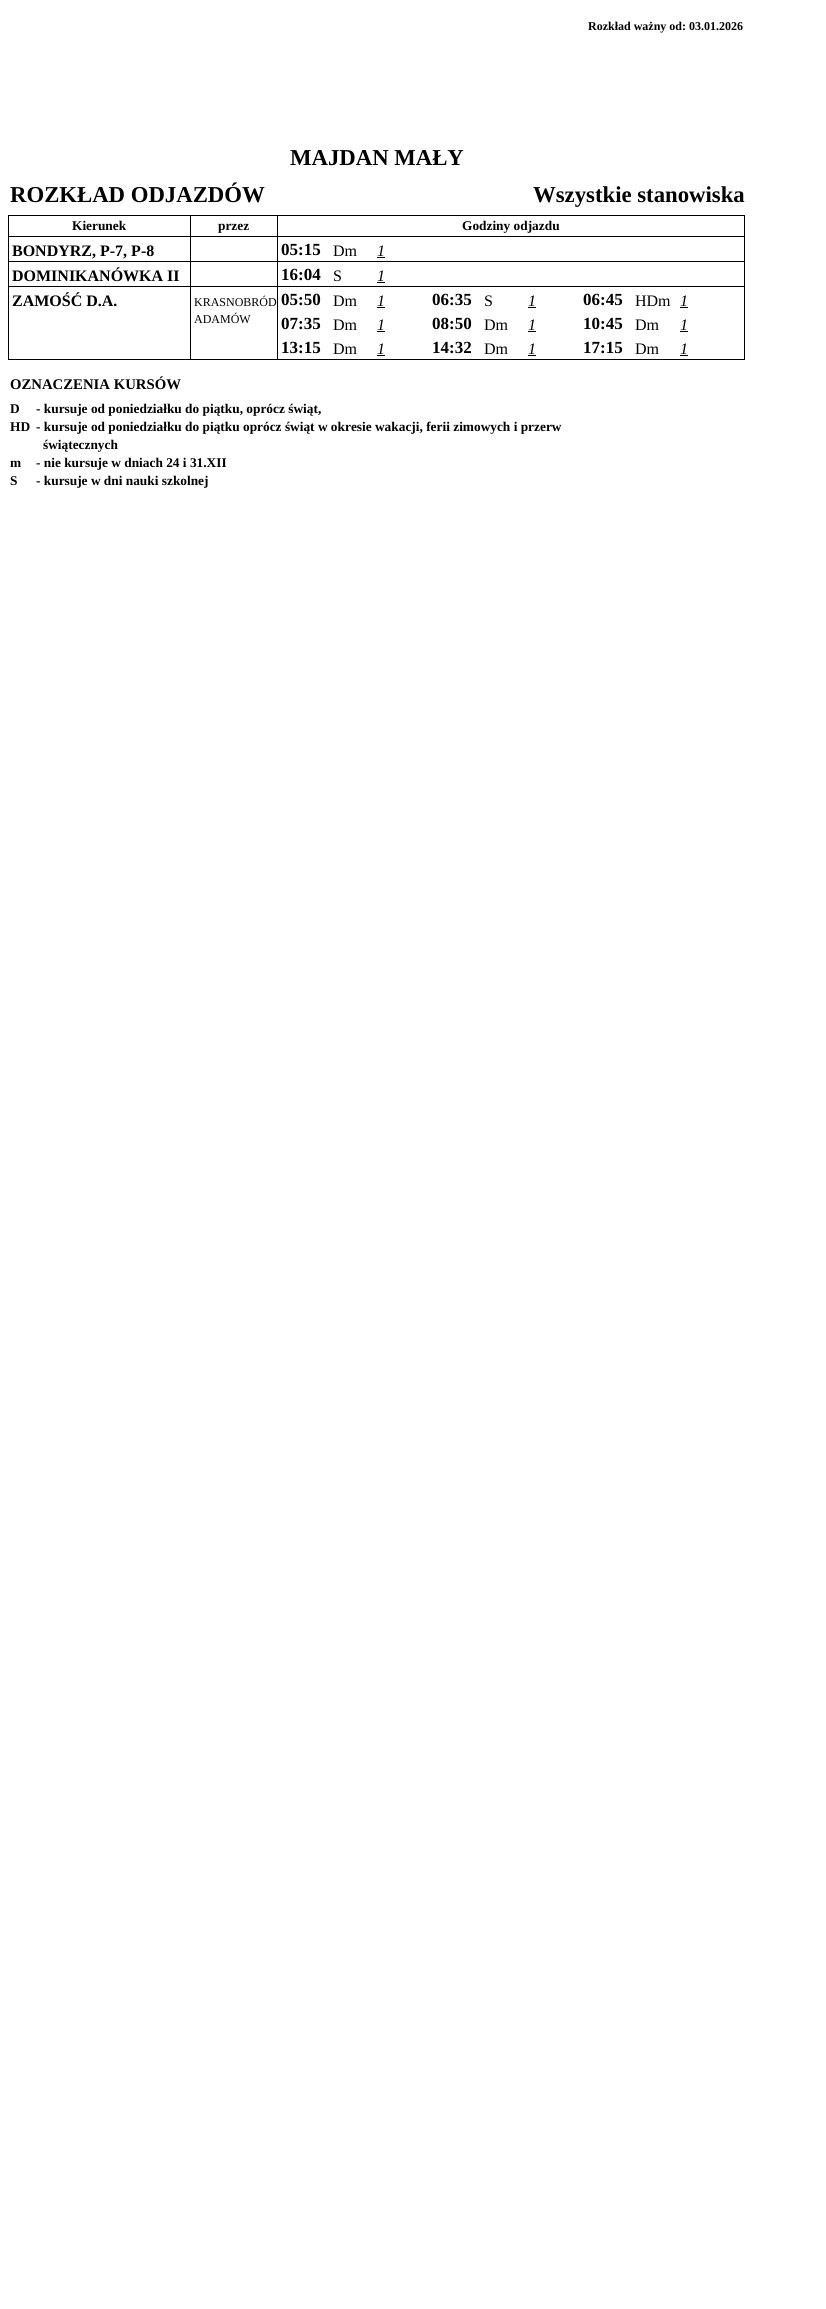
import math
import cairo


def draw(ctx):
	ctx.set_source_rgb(1, 1, 1)
	ctx.paint()
	ctx.select_font_face('Liberation Serif', cairo.FONT_SLANT_NORMAL, cairo.FONT_WEIGHT_BOLD)
	ctx.set_font_size(12)
	ctx.set_source_rgb(0, 0, 0)
	ctx.move_to(588, 30)
	ctx.show_text('Rozkład ważny od: 03.01.2026')
	ctx.set_font_size(22.75)
	for x, y, s in [
		(290, 165, 'MAJDAN MAŁY'),
		(10, 202, 'ROZKŁAD ODJAZDÓW'),
		(533, 202, 'Wszystkie stanowiska'),
	]:
		ctx.move_to(x, y)
		ctx.show_text(s)
	ctx.rectangle(277, 215, 468, 1)
	ctx.rectangle(277, 236, 468, 1)
	ctx.rectangle(277, 261, 468, 1)
	ctx.rectangle(277, 286, 468, 1)
	ctx.rectangle(744, 311, 1, 49)
	ctx.rectangle(277, 359, 468, 1)
	ctx.rectangle(277, 311, 1, 49)
	ctx.rectangle(277, 286, 1, 26)
	ctx.rectangle(190, 286, 88, 1)
	ctx.rectangle(277, 261, 1, 26)
	ctx.rectangle(190, 261, 88, 1)
	ctx.rectangle(277, 236, 1, 26)
	ctx.rectangle(190, 236, 88, 1)
	ctx.rectangle(277, 215, 1, 22)
	ctx.rectangle(190, 215, 88, 1)
	ctx.rectangle(190, 359, 88, 1)
	ctx.rectangle(190, 311, 1, 49)
	ctx.rectangle(190, 286, 1, 26)
	ctx.rectangle(8, 286, 183, 1)
	ctx.rectangle(190, 261, 1, 26)
	ctx.rectangle(8, 261, 183, 1)
	ctx.rectangle(190, 236, 1, 26)
	ctx.rectangle(8, 236, 183, 1)
	ctx.rectangle(190, 215, 1, 22)
	ctx.rectangle(8, 215, 183, 1)
	ctx.rectangle(8, 359, 183, 1)
	ctx.rectangle(8, 311, 1, 49)
	ctx.rectangle(8, 286, 1, 26)
	ctx.rectangle(8, 261, 1, 26)
	ctx.rectangle(8, 236, 1, 26)
	ctx.rectangle(8, 215, 1, 22)
	ctx.fill()
	ctx.set_font_size(13.35)
	ctx.move_to(72, 230)
	ctx.show_text('Kierunek')
	ctx.move_to(218, 230)
	ctx.show_text('przez')
	ctx.rectangle(744, 286, 1, 26)
	ctx.rectangle(744, 261, 1, 26)
	ctx.rectangle(744, 236, 1, 26)
	ctx.rectangle(744, 215, 1, 22)
	ctx.fill()
	ctx.move_to(462, 230)
	ctx.show_text('Godziny odjazdu')
	ctx.set_font_size(16)
	ctx.move_to(12, 256)
	ctx.show_text('BONDYRZ, P-7, P-8')
	ctx.set_font_size(17)
	ctx.move_to(281, 255)
	ctx.show_text('05:15')
	ctx.select_font_face('Liberation Serif')
	ctx.set_font_size(16)
	ctx.move_to(333, 256)
	ctx.show_text('Dm')
	ctx.select_font_face('Liberation Serif', cairo.FONT_SLANT_ITALIC)
	ctx.move_to(377, 256)
	ctx.show_text('1')
	ctx.rectangle(377, 257, 8, 1)
	ctx.fill()
	ctx.select_font_face('Liberation Serif', cairo.FONT_SLANT_NORMAL, cairo.FONT_WEIGHT_BOLD)
	ctx.move_to(12, 281)
	ctx.show_text('DOMINIKANÓWKA II')
	ctx.set_font_size(17)
	ctx.move_to(281, 280)
	ctx.show_text('16:04')
	ctx.select_font_face('Liberation Serif')
	ctx.set_font_size(16)
	ctx.move_to(333, 281)
	ctx.show_text('S')
	ctx.select_font_face('Liberation Serif', cairo.FONT_SLANT_ITALIC)
	ctx.move_to(377, 281)
	ctx.show_text('1')
	ctx.rectangle(377, 282, 8, 1)
	ctx.fill()
	ctx.select_font_face('Liberation Serif', cairo.FONT_SLANT_NORMAL, cairo.FONT_WEIGHT_BOLD)
	ctx.move_to(12, 306)
	ctx.show_text('ZAMOŚĆ D.A.')
	ctx.select_font_face('Liberation Serif')
	ctx.set_font_size(12)
	ctx.move_to(194, 306)
	ctx.show_text('KRASNOBRÓD')
	ctx.select_font_face('Liberation Serif', cairo.FONT_SLANT_NORMAL, cairo.FONT_WEIGHT_BOLD)
	ctx.set_font_size(17)
	ctx.move_to(281, 305)
	ctx.show_text('05:50')
	ctx.select_font_face('Liberation Serif')
	ctx.set_font_size(16)
	ctx.move_to(333, 306)
	ctx.show_text('Dm')
	ctx.select_font_face('Liberation Serif', cairo.FONT_SLANT_ITALIC)
	ctx.move_to(377, 306)
	ctx.show_text('1')
	ctx.rectangle(377, 307, 8, 1)
	ctx.fill()
	ctx.select_font_face('Liberation Serif', cairo.FONT_SLANT_NORMAL, cairo.FONT_WEIGHT_BOLD)
	ctx.set_font_size(17)
	ctx.move_to(432, 305)
	ctx.show_text('06:35')
	ctx.select_font_face('Liberation Serif')
	ctx.set_font_size(16)
	ctx.move_to(484, 306)
	ctx.show_text('S')
	ctx.select_font_face('Liberation Serif', cairo.FONT_SLANT_ITALIC)
	ctx.move_to(528, 306)
	ctx.show_text('1')
	ctx.rectangle(528, 307, 8, 1)
	ctx.fill()
	ctx.select_font_face('Liberation Serif', cairo.FONT_SLANT_NORMAL, cairo.FONT_WEIGHT_BOLD)
	ctx.set_font_size(17)
	ctx.move_to(583, 305)
	ctx.show_text('06:45')
	ctx.select_font_face('Liberation Serif')
	ctx.set_font_size(16)
	ctx.move_to(635, 306)
	ctx.show_text('HDm')
	ctx.select_font_face('Liberation Serif', cairo.FONT_SLANT_ITALIC)
	ctx.move_to(680, 306)
	ctx.show_text('1')
	ctx.rectangle(680, 307, 8, 1)
	ctx.fill()
	ctx.select_font_face('Liberation Serif')
	ctx.set_font_size(12)
	ctx.move_to(194, 323)
	ctx.show_text('ADAMÓW')
	ctx.select_font_face('Liberation Serif', cairo.FONT_SLANT_NORMAL, cairo.FONT_WEIGHT_BOLD)
	ctx.set_font_size(17)
	ctx.move_to(281, 329)
	ctx.show_text('07:35')
	ctx.select_font_face('Liberation Serif')
	ctx.set_font_size(16)
	ctx.move_to(333, 330)
	ctx.show_text('Dm')
	ctx.select_font_face('Liberation Serif', cairo.FONT_SLANT_ITALIC)
	ctx.move_to(377, 330)
	ctx.show_text('1')
	ctx.rectangle(377, 331, 8, 1)
	ctx.fill()
	ctx.select_font_face('Liberation Serif', cairo.FONT_SLANT_NORMAL, cairo.FONT_WEIGHT_BOLD)
	ctx.set_font_size(17)
	ctx.move_to(432, 329)
	ctx.show_text('08:50')
	ctx.select_font_face('Liberation Serif')
	ctx.set_font_size(16)
	ctx.move_to(484, 330)
	ctx.show_text('Dm')
	ctx.select_font_face('Liberation Serif', cairo.FONT_SLANT_ITALIC)
	ctx.move_to(528, 330)
	ctx.show_text('1')
	ctx.rectangle(528, 331, 8, 1)
	ctx.fill()
	ctx.select_font_face('Liberation Serif', cairo.FONT_SLANT_NORMAL, cairo.FONT_WEIGHT_BOLD)
	ctx.set_font_size(17)
	ctx.move_to(583, 329)
	ctx.show_text('10:45')
	ctx.select_font_face('Liberation Serif')
	ctx.set_font_size(16)
	ctx.move_to(635, 330)
	ctx.show_text('Dm')
	ctx.select_font_face('Liberation Serif', cairo.FONT_SLANT_ITALIC)
	ctx.move_to(680, 330)
	ctx.show_text('1')
	ctx.rectangle(680, 331, 8, 1)
	ctx.fill()
	ctx.select_font_face('Liberation Serif', cairo.FONT_SLANT_NORMAL, cairo.FONT_WEIGHT_BOLD)
	ctx.set_font_size(17)
	ctx.move_to(281, 353)
	ctx.show_text('13:15')
	ctx.select_font_face('Liberation Serif')
	ctx.set_font_size(16)
	ctx.move_to(333, 354)
	ctx.show_text('Dm')
	ctx.select_font_face('Liberation Serif', cairo.FONT_SLANT_ITALIC)
	ctx.move_to(377, 354)
	ctx.show_text('1')
	ctx.rectangle(377, 355, 8, 1)
	ctx.fill()
	ctx.select_font_face('Liberation Serif', cairo.FONT_SLANT_NORMAL, cairo.FONT_WEIGHT_BOLD)
	ctx.set_font_size(17)
	ctx.move_to(432, 353)
	ctx.show_text('14:32')
	ctx.select_font_face('Liberation Serif')
	ctx.set_font_size(16)
	ctx.move_to(484, 354)
	ctx.show_text('Dm')
	ctx.select_font_face('Liberation Serif', cairo.FONT_SLANT_ITALIC)
	ctx.move_to(528, 354)
	ctx.show_text('1')
	ctx.rectangle(528, 355, 8, 1)
	ctx.fill()
	ctx.select_font_face('Liberation Serif', cairo.FONT_SLANT_NORMAL, cairo.FONT_WEIGHT_BOLD)
	ctx.set_font_size(17)
	ctx.move_to(583, 353)
	ctx.show_text('17:15')
	ctx.select_font_face('Liberation Serif')
	ctx.set_font_size(16)
	ctx.move_to(635, 354)
	ctx.show_text('Dm')
	ctx.select_font_face('Liberation Serif', cairo.FONT_SLANT_ITALIC)
	ctx.move_to(680, 354)
	ctx.show_text('1')
	ctx.rectangle(680, 355, 8, 1)
	ctx.fill()
	ctx.select_font_face('Liberation Serif', cairo.FONT_SLANT_NORMAL, cairo.FONT_WEIGHT_BOLD)
	ctx.set_font_size(14.75)
	ctx.move_to(10, 389)
	ctx.show_text('OZNACZENIA KURSÓW')
	ctx.set_font_size(13.35)
	for x, y, s in [
		(10, 413, 'D'),
		(36, 413, '- kursuje od poniedziałku do piątku, oprócz świąt,'),
		(10, 431, 'HD'),
		(36, 431, '- kursuje od poniedziałku do piątku oprócz świąt w okresie wakacji, ferii zimowych i przerw'),
		(43, 449, 'świątecznych'),
		(10, 467, 'm'),
		(36, 467, '- nie kursuje w dniach 24 i 31.XII'),
		(10, 485, 'S'),
		(36, 485, '- kursuje w dni nauki szkolnej'),
	]:
		ctx.move_to(x, y)
		ctx.show_text(s)


surface = cairo.ImageSurface(cairo.FORMAT_RGB24, 826, 2309)
ctx = cairo.Context(surface)
options = cairo.FontOptions()
options.set_hint_metrics(cairo.HINT_METRICS_OFF)
options.set_hint_style(cairo.HINT_STYLE_NONE)
ctx.set_font_options(options)
ctx.set_miter_limit(4)
draw(ctx)
surface.write_to_png('image.png')
